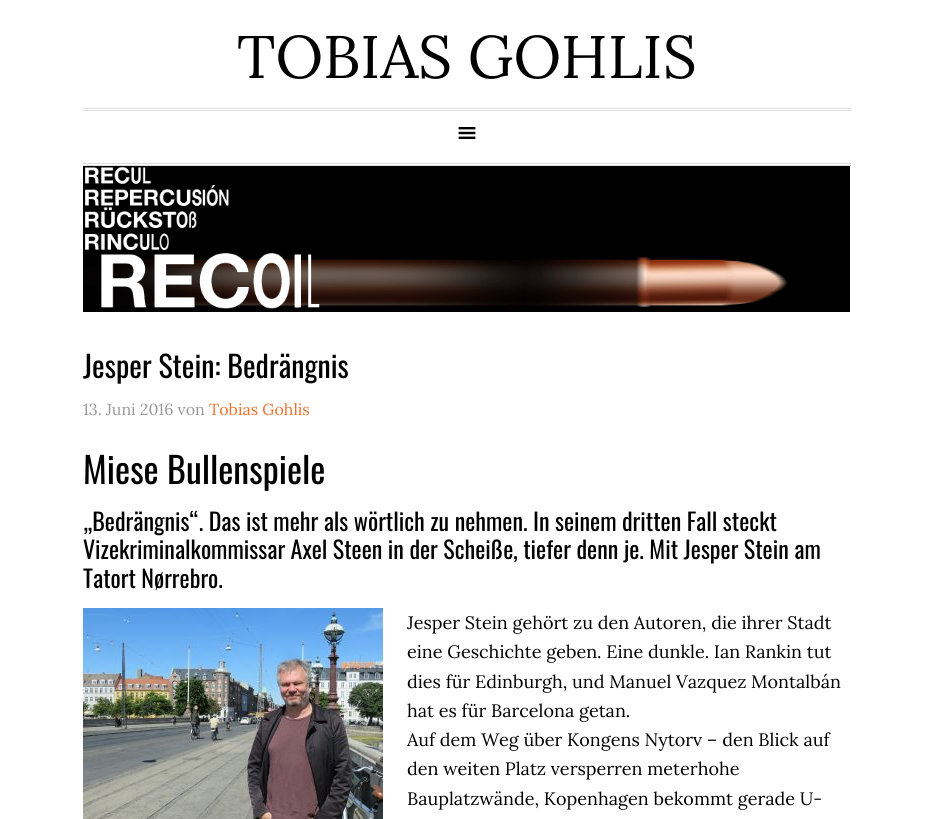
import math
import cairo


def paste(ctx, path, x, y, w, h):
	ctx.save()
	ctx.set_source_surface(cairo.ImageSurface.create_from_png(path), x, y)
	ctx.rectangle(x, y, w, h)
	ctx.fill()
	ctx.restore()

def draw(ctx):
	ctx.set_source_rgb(1, 1, 1)
	ctx.paint()
	ctx.select_font_face('Lora')
	ctx.set_font_size(60)
	ctx.set_source_rgb(0, 0, 0)
	ctx.move_to(237, 78)
	ctx.show_text('TOBIAS GOHLIS')
	ctx.set_source_rgb(0.867, 0.867, 0.867)
	ctx.rectangle(83, 108, 768, 1)
	ctx.rectangle(83, 110, 768, 1)
	ctx.rectangle(83, 163, 768, 1)
	ctx.rectangle(83, 165, 768, 1)
	ctx.fill()
	paste(ctx, 'media/1.png', 458, 127, 18, 12)
	paste(ctx, 'media/2.png', 83, 166, 767, 146)
	ctx.select_font_face('Oswald')
	ctx.set_font_size(30)
	ctx.set_source_rgb(0, 0, 0)
	ctx.move_to(83, 378)
	ctx.show_text('Jesper Stein: Bedrängnis')
	ctx.select_font_face('Lora')
	ctx.set_font_size(16)
	ctx.set_source_rgb(0.6, 0.6, 0.6)
	ctx.move_to(83, 415)
	ctx.show_text('13. Juni 2016 von')
	ctx.set_source_rgb(0.929, 0.439, 0.169)
	ctx.move_to(209, 415)
	ctx.show_text('Tobias Gohlis')
	ctx.select_font_face('Oswald')
	ctx.set_font_size(36)
	ctx.set_source_rgb(0, 0, 0)
	ctx.move_to(83, 484)
	ctx.show_text('Miese Bullenspiele')
	ctx.set_font_size(24)
	for x, y, s in [
		(83, 531, '„Bedrängnis“. Das ist mehr als wörtlich zu nehmen. In seinem dritten Fall steckt'),
		(83, 559, 'Vizekriminalkommissar Axel Steen in der Scheiße, tiefer denn je. Mit Jesper Stein am'),
		(83, 588, 'Tatort Nørrebro.'),
	]:
		ctx.move_to(x, y)
		ctx.show_text(s)
	paste(ctx, 'media/3.png', 83, 608, 300, 211)
	ctx.select_font_face('Lora')
	ctx.set_font_size(18)
	for x, y, s in [
		(407, 629, 'Jesper Stein gehört zu den Autoren, die ihrer Stadt'),
		(407, 658, 'eine Geschichte geben. Eine dunkle. Ian Rankin tut'),
		(407, 688, 'dies für Edinburgh, und Manuel Vazquez Montalbán'),
		(407, 717, 'hat es für Barcelona getan.'),
		(407, 746, 'Auf dem Weg über Kongens Nytorv – den Blick auf'),
		(407, 775, 'den weiten Platz versperren meterhohe'),
		(407, 805, 'Bauplatzwände, Kopenhagen bekommt gerade U-'),
	]:
		ctx.move_to(x, y)
		ctx.show_text(s)


surface = cairo.ImageSurface(cairo.FORMAT_RGB24, 933, 819)
ctx = cairo.Context(surface)
options = cairo.FontOptions()
options.set_hint_metrics(cairo.HINT_METRICS_OFF)
options.set_hint_style(cairo.HINT_STYLE_NONE)
ctx.set_font_options(options)
ctx.set_miter_limit(4)
draw(ctx)
surface.write_to_png('image.png')
